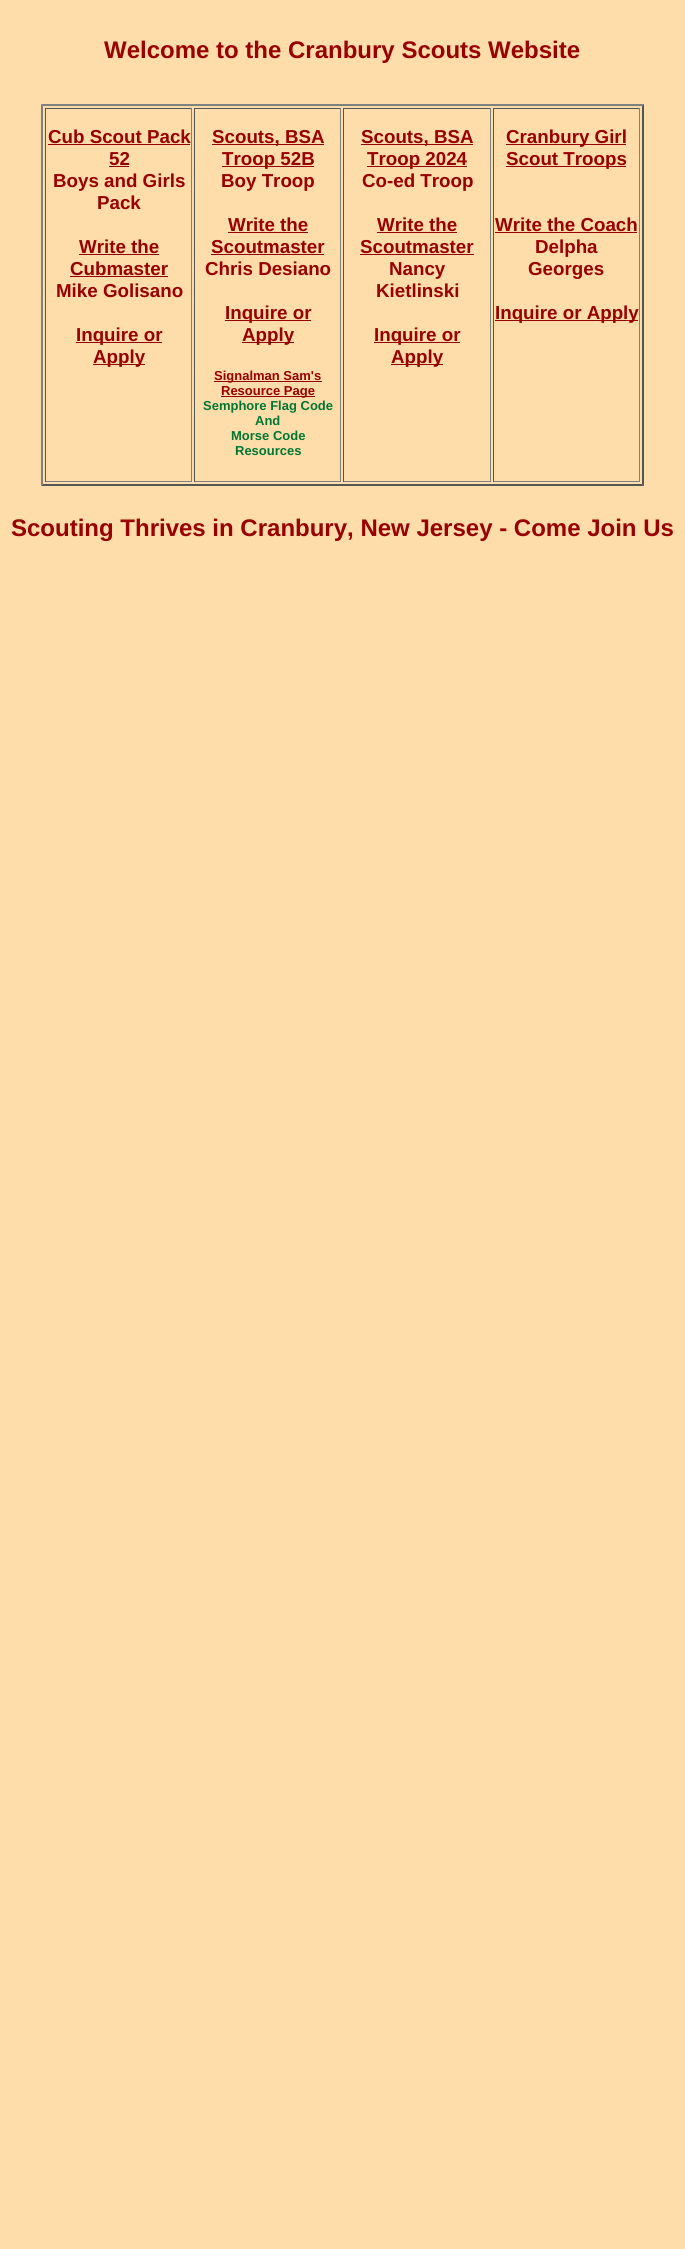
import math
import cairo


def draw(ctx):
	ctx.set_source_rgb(1, 0.867, 0.667)
	ctx.paint()
	ctx.select_font_face('Liberation Sans', cairo.FONT_SLANT_NORMAL, cairo.FONT_WEIGHT_BOLD)
	ctx.set_font_size(24)
	ctx.set_source_rgb(0.6, 0, 0)
	ctx.move_to(104, 58)
	ctx.show_text('Welcome to the Cranbury Scouts Website')
	ctx.set_source_rgb(0.502, 0.502, 0.502)
	ctx.new_path()
	ctx.move_to(41, 104)
	ctx.line_to(644, 104)
	ctx.line_to(642, 106)
	ctx.line_to(43, 106)
	ctx.close_path()
	ctx.fill()
	ctx.set_source_rgb(0.333, 0.333, 0.333)
	ctx.new_path()
	ctx.move_to(644, 104)
	ctx.line_to(644, 486)
	ctx.line_to(642, 484)
	ctx.line_to(642, 106)
	ctx.close_path()
	ctx.fill()
	ctx.new_path()
	ctx.move_to(644, 486)
	ctx.line_to(41, 486)
	ctx.line_to(43, 484)
	ctx.line_to(642, 484)
	ctx.close_path()
	ctx.fill()
	ctx.set_source_rgb(0.502, 0.502, 0.502)
	ctx.new_path()
	ctx.move_to(41, 486)
	ctx.line_to(41, 104)
	ctx.line_to(43, 106)
	ctx.line_to(43, 484)
	ctx.close_path()
	ctx.fill()
	ctx.set_source_rgb(0.333, 0.333, 0.333)
	ctx.rectangle(45, 108, 147, 1)
	ctx.fill()
	ctx.set_source_rgb(0.502, 0.502, 0.502)
	ctx.rectangle(191, 108, 1, 374)
	ctx.rectangle(45, 481, 147, 1)
	ctx.fill()
	ctx.set_source_rgb(0.333, 0.333, 0.333)
	ctx.rectangle(45, 108, 1, 374)
	ctx.fill()
	ctx.set_font_size(18.75)
	ctx.set_source_rgb(0.6, 0, 0)
	ctx.move_to(48, 143)
	ctx.show_text('Cub Scout Pack')
	ctx.rectangle(48, 144, 142, 1)
	ctx.fill()
	ctx.move_to(109, 165)
	ctx.show_text('52')
	ctx.rectangle(109, 166, 20, 1)
	ctx.fill()
	for x, y, s in [
		(53, 187, 'Boys and Girls'),
		(97, 209, 'Pack'),
		(79, 253, 'Write the'),
	]:
		ctx.move_to(x, y)
		ctx.show_text(s)
	ctx.rectangle(79, 254, 80, 1)
	ctx.fill()
	ctx.move_to(70, 275)
	ctx.show_text('Cubmaster')
	ctx.rectangle(70, 276, 98, 1)
	ctx.fill()
	ctx.move_to(56, 297)
	ctx.show_text('Mike Golisano')
	ctx.rectangle(76, 342, 86, 1)
	ctx.fill()
	ctx.move_to(76, 341)
	ctx.show_text('Inquire or')
	ctx.rectangle(93, 364, 52, 1)
	ctx.fill()
	ctx.move_to(93, 363)
	ctx.show_text('Apply')
	ctx.set_source_rgb(0.333, 0.333, 0.333)
	ctx.rectangle(194, 108, 147, 1)
	ctx.fill()
	ctx.set_source_rgb(0.502, 0.502, 0.502)
	ctx.rectangle(340, 108, 1, 374)
	ctx.rectangle(194, 481, 147, 1)
	ctx.fill()
	ctx.set_source_rgb(0.333, 0.333, 0.333)
	ctx.rectangle(194, 108, 1, 374)
	ctx.fill()
	ctx.set_source_rgb(0.6, 0, 0)
	ctx.rectangle(212, 144, 112, 1)
	ctx.fill()
	ctx.move_to(212, 143)
	ctx.show_text('Scouts, BSA')
	ctx.rectangle(222, 166, 92, 1)
	ctx.fill()
	for x, y, s in [
		(222, 165, 'Troop 52B'),
		(221, 187, 'Boy Troop'),
		(228, 231, 'Write the'),
	]:
		ctx.move_to(x, y)
		ctx.show_text(s)
	ctx.rectangle(228, 232, 80, 1)
	ctx.fill()
	ctx.move_to(211, 253)
	ctx.show_text('Scoutmaster')
	ctx.rectangle(211, 254, 113, 1)
	ctx.fill()
	ctx.move_to(205, 275)
	ctx.show_text('Chris Desiano')
	ctx.rectangle(225, 320, 86, 1)
	ctx.fill()
	ctx.move_to(225, 319)
	ctx.show_text('Inquire or')
	ctx.rectangle(242, 342, 52, 1)
	ctx.fill()
	ctx.move_to(242, 341)
	ctx.show_text('Apply')
	ctx.rectangle(214, 381, 108, 1)
	ctx.fill()
	ctx.set_font_size(13)
	ctx.move_to(214, 380)
	ctx.show_text('Signalman Sam\'s')
	ctx.rectangle(221, 396, 94, 1)
	ctx.fill()
	ctx.move_to(221, 395)
	ctx.show_text('Resource Page')
	ctx.set_source_rgb(0, 0.467, 0.2)
	for x, y, s in [
		(203, 410, 'Semphore Flag Code'),
		(255, 425, 'And'),
		(231, 440, 'Morse Code'),
		(235, 455, 'Resources'),
	]:
		ctx.move_to(x, y)
		ctx.show_text(s)
	ctx.set_source_rgb(0.333, 0.333, 0.333)
	ctx.rectangle(343, 108, 148, 1)
	ctx.fill()
	ctx.set_source_rgb(0.502, 0.502, 0.502)
	ctx.rectangle(490, 108, 1, 374)
	ctx.rectangle(343, 481, 148, 1)
	ctx.fill()
	ctx.set_source_rgb(0.333, 0.333, 0.333)
	ctx.rectangle(343, 108, 1, 374)
	ctx.fill()
	ctx.set_source_rgb(0.6, 0, 0)
	ctx.rectangle(361, 144, 112, 1)
	ctx.fill()
	ctx.set_font_size(18.75)
	ctx.move_to(361, 143)
	ctx.show_text('Scouts, BSA')
	ctx.rectangle(367, 166, 100, 1)
	ctx.fill()
	for x, y, s in [
		(367, 165, 'Troop 2024'),
		(362, 187, 'Co-ed Troop'),
		(377, 231, 'Write the'),
	]:
		ctx.move_to(x, y)
		ctx.show_text(s)
	ctx.rectangle(377, 232, 80, 1)
	ctx.fill()
	ctx.move_to(360, 253)
	ctx.show_text('Scoutmaster')
	ctx.rectangle(360, 254, 114, 1)
	ctx.fill()
	ctx.move_to(389, 275)
	ctx.show_text('Nancy')
	ctx.move_to(376, 297)
	ctx.show_text('Kietlinski')
	ctx.rectangle(374, 342, 86, 1)
	ctx.fill()
	ctx.move_to(374, 341)
	ctx.show_text('Inquire or')
	ctx.rectangle(391, 364, 52, 1)
	ctx.fill()
	ctx.move_to(391, 363)
	ctx.show_text('Apply')
	ctx.set_source_rgb(0.333, 0.333, 0.333)
	ctx.rectangle(493, 108, 147, 1)
	ctx.fill()
	ctx.set_source_rgb(0.502, 0.502, 0.502)
	ctx.rectangle(639, 108, 1, 374)
	ctx.rectangle(493, 481, 147, 1)
	ctx.fill()
	ctx.set_source_rgb(0.333, 0.333, 0.333)
	ctx.rectangle(493, 108, 1, 374)
	ctx.fill()
	ctx.set_source_rgb(0.6, 0, 0)
	ctx.rectangle(506, 144, 120, 1)
	ctx.fill()
	ctx.move_to(506, 143)
	ctx.show_text('Cranbury Girl')
	ctx.rectangle(506, 166, 120, 1)
	ctx.fill()
	ctx.move_to(506, 165)
	ctx.show_text('Scout Troops')
	ctx.move_to(495, 231)
	ctx.show_text('Write the Coach')
	ctx.rectangle(495, 232, 142, 1)
	ctx.fill()
	ctx.move_to(535, 253)
	ctx.show_text('Delpha')
	ctx.move_to(528, 275)
	ctx.show_text('Georges')
	ctx.rectangle(495, 320, 143, 1)
	ctx.fill()
	ctx.move_to(495, 319)
	ctx.show_text('Inquire or Apply')
	ctx.set_font_size(24)
	ctx.move_to(11, 536)
	ctx.show_text('Scouting Thrives in Cranbury, New Jersey - Come Join Us')


surface = cairo.ImageSurface(cairo.FORMAT_RGB24, 685, 2249)
ctx = cairo.Context(surface)
options = cairo.FontOptions()
options.set_hint_metrics(cairo.HINT_METRICS_OFF)
options.set_hint_style(cairo.HINT_STYLE_NONE)
ctx.set_font_options(options)
ctx.set_miter_limit(4)
draw(ctx)
surface.write_to_png('image.png')
